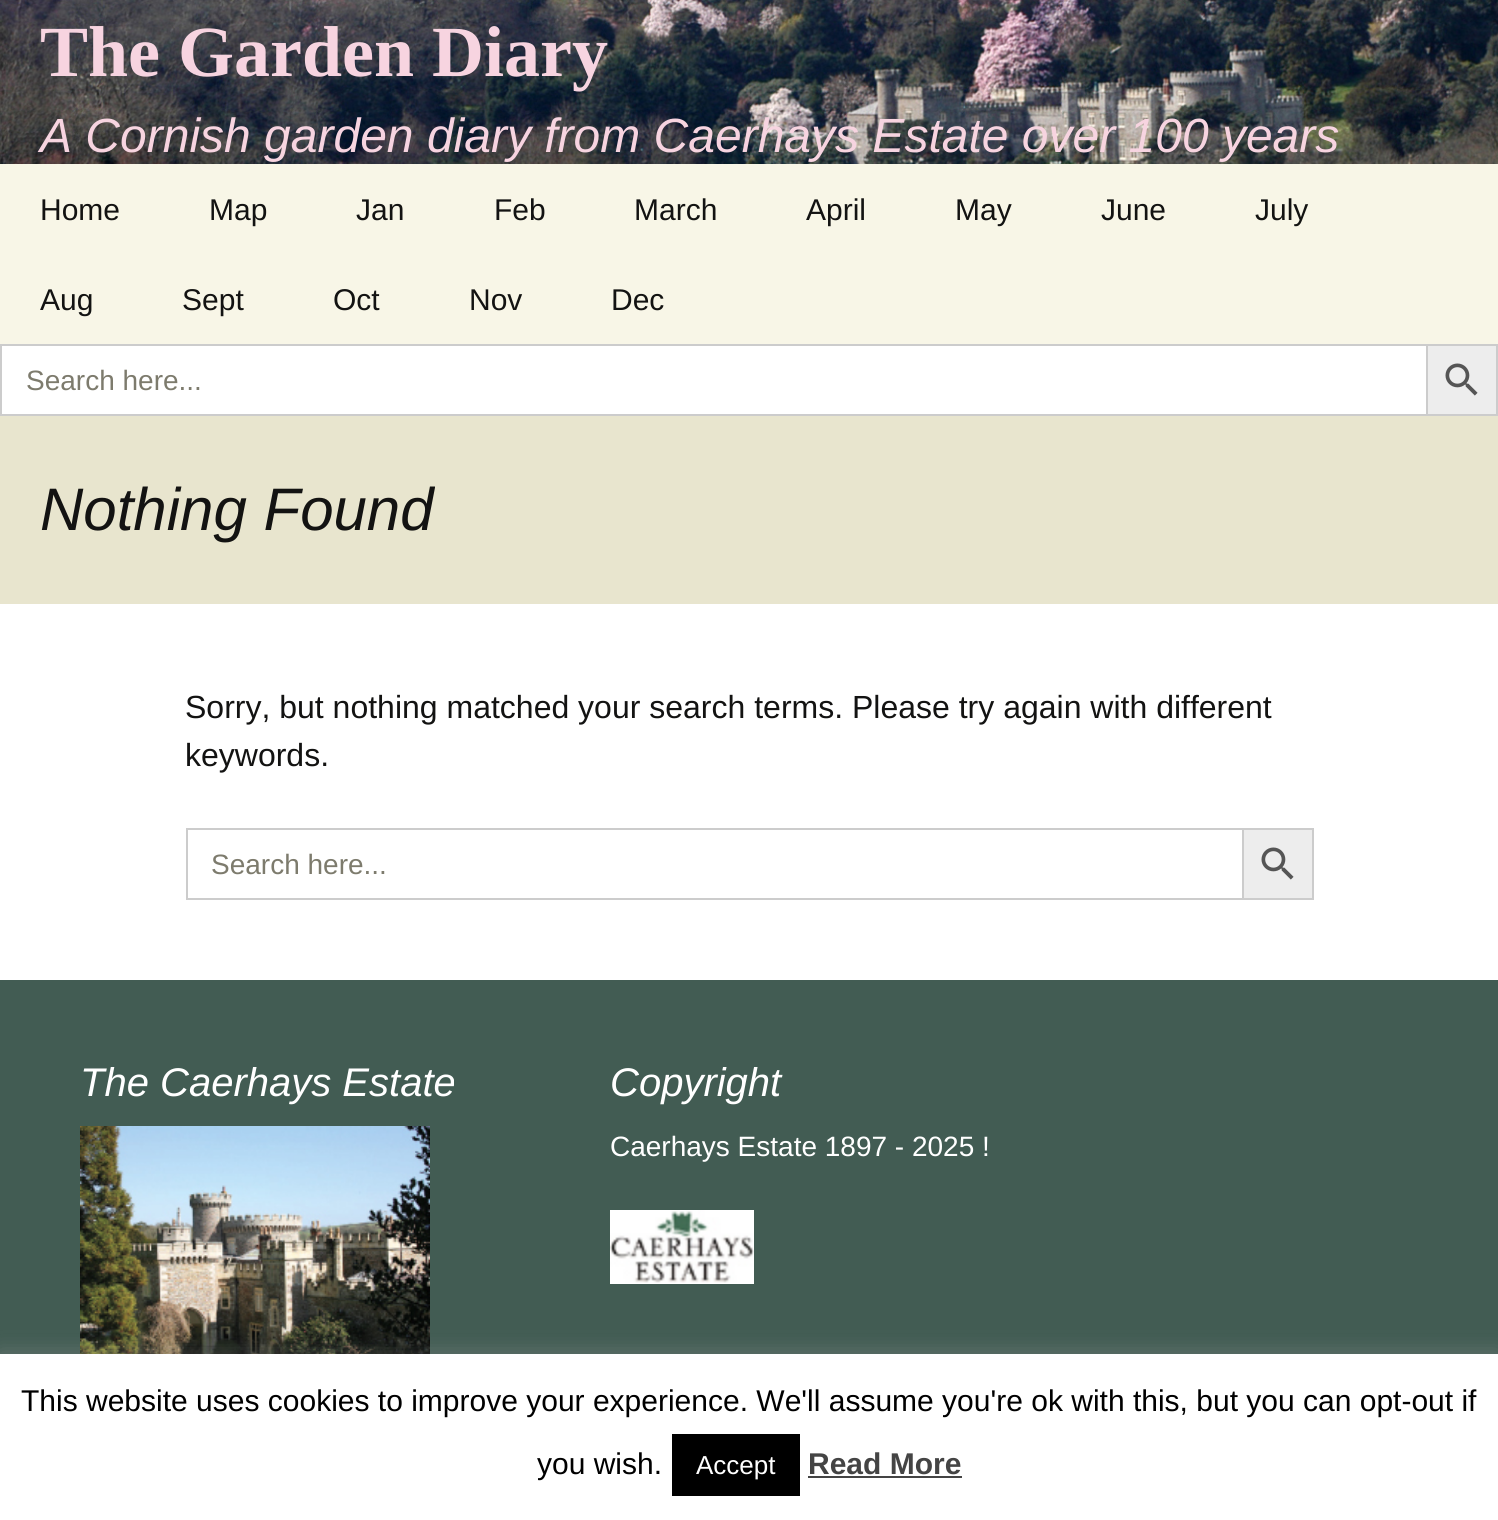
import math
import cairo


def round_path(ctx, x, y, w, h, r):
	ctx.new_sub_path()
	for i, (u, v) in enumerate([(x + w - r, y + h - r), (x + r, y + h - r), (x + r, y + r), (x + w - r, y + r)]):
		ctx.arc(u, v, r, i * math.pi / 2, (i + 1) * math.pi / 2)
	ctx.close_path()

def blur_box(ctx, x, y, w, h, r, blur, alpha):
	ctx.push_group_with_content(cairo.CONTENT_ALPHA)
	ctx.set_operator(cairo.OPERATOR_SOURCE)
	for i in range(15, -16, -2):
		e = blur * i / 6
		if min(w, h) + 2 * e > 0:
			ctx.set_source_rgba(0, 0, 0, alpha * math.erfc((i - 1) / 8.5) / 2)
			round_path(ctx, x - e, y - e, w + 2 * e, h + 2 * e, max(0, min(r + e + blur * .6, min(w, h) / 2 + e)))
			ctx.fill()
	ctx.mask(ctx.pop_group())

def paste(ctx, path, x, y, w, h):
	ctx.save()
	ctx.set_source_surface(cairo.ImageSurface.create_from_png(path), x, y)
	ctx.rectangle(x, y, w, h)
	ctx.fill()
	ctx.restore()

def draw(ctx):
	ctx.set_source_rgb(1, 1, 1)
	ctx.paint()
	paste(ctx, 'media/1.png', 0, 0, 1498, 164)
	ctx.select_font_face('Liberation Serif', cairo.FONT_SLANT_NORMAL, cairo.FONT_WEIGHT_BOLD)
	ctx.set_font_size(72)
	ctx.set_source_rgb(0.965, 0.831, 0.878)
	ctx.move_to(40, 76)
	ctx.show_text('The Garden Diary')
	ctx.select_font_face('Liberation Sans', cairo.FONT_SLANT_ITALIC)
	ctx.set_font_size(48)
	ctx.move_to(40, 152)
	ctx.show_text('A Cornish garden diary from Caerhays Estate over 100 years')
	ctx.set_source_rgb(0.969, 0.961, 0.906)
	ctx.rectangle(0, 164, 1498, 180)
	ctx.fill()
	ctx.select_font_face('Liberation Sans')
	ctx.set_font_size(30)
	ctx.set_source_rgb(0.078, 0.078, 0.071)
	for x, y, s in [
		(40, 220, 'Home'),
		(209, 220, 'Map'),
		(356, 220, 'Jan'),
		(494, 220, 'Feb'),
		(634, 220, 'March'),
		(806, 220, 'April'),
		(955, 220, 'May'),
		(1101, 220, 'June'),
		(1255, 220, 'July'),
		(40, 310, 'Aug'),
		(182, 310, 'Sept'),
		(333, 310, 'Oct'),
		(469, 310, 'Nov'),
		(611, 310, 'Dec'),
	]:
		ctx.move_to(x, y)
		ctx.show_text(s)
	ctx.set_source_rgb(0.8, 0.8, 0.8)
	ctx.rectangle(0, 344, 1426, 2)
	ctx.rectangle(0, 414, 1426, 2)
	ctx.rectangle(0, 344, 2, 72)
	ctx.fill()
	ctx.set_font_size(28)
	ctx.set_source_rgb(0.49, 0.482, 0.427)
	ctx.move_to(26, 390)
	ctx.show_text('Search here...')
	ctx.set_source_rgb(0.929, 0.929, 0.929)
	ctx.rectangle(1427, 345, 70, 70)
	ctx.fill_preserve()
	ctx.set_source_rgb(0.8, 0.8, 0.8)
	ctx.stroke()
	paste(ctx, 'media/2.png', 1445, 363, 33, 33)
	ctx.set_source_rgb(0.91, 0.898, 0.808)
	ctx.rectangle(0, 416, 1498, 188)
	ctx.fill()
	ctx.select_font_face('Liberation Sans', cairo.FONT_SLANT_ITALIC)
	ctx.set_font_size(60)
	ctx.set_source_rgb(0.078, 0.078, 0.071)
	ctx.move_to(40, 530)
	ctx.show_text('Nothing Found')
	ctx.select_font_face('Liberation Sans')
	ctx.set_font_size(32)
	ctx.move_to(185, 718)
	ctx.show_text('Sorry, but nothing matched your search terms. Please try again with different')
	ctx.move_to(185, 766)
	ctx.show_text('keywords.')
	ctx.set_source_rgb(0.8, 0.8, 0.8)
	ctx.rectangle(186, 828, 1056, 2)
	ctx.rectangle(186, 898, 1056, 2)
	ctx.rectangle(186, 828, 2, 72)
	ctx.fill()
	ctx.set_font_size(28)
	ctx.set_source_rgb(0.49, 0.482, 0.427)
	ctx.move_to(211, 874)
	ctx.show_text('Search here...')
	ctx.set_source_rgb(0.929, 0.929, 0.929)
	ctx.rectangle(1243, 829, 70, 70)
	ctx.fill_preserve()
	ctx.set_source_rgb(0.8, 0.8, 0.8)
	ctx.stroke()
	paste(ctx, 'media/2.png', 1261, 847, 33, 33)
	ctx.set_source_rgb(0.259, 0.361, 0.325)
	ctx.rectangle(0, 980, 1498, 374)
	ctx.fill()
	ctx.select_font_face('Liberation Sans', cairo.FONT_SLANT_ITALIC)
	ctx.set_font_size(40)
	ctx.set_source_rgb(1, 1, 1)
	ctx.move_to(80, 1096)
	ctx.show_text('The Caerhays Estate')
	paste(ctx, 'media/3.png', 80, 1126, 350, 228)
	ctx.move_to(610, 1096)
	ctx.show_text('Copyright')
	ctx.select_font_face('Liberation Sans')
	ctx.set_font_size(28)
	ctx.move_to(610, 1156)
	ctx.show_text('Caerhays Estate 1897 - 2025 !')
	paste(ctx, 'media/4.png', 610, 1210, 144, 74)
	ctx.set_source_rgb(0.675, 0.671, 0.671)
	blur_box(ctx, 0, 1352, 1498, 166, 0, 10, 0.3)
	ctx.set_source_rgb(1, 1, 1)
	ctx.rectangle(0, 1354, 1498, 166)
	ctx.fill()
	ctx.set_font_size(30)
	ctx.set_source_rgb(0, 0, 0)
	ctx.move_to(21, 1411)
	ctx.show_text('This website uses cookies to improve your experience. We\'ll assume you\'re ok with this, but you can opt-out if')
	ctx.move_to(537, 1474)
	ctx.show_text('you wish.')
	ctx.rectangle(672, 1434, 128, 62)
	ctx.fill()
	ctx.set_font_size(26)
	ctx.set_source_rgb(1, 1, 1)
	ctx.move_to(696, 1474)
	ctx.show_text('Accept')
	ctx.select_font_face('Liberation Sans', cairo.FONT_SLANT_NORMAL, cairo.FONT_WEIGHT_BOLD)
	ctx.set_font_size(30)
	ctx.set_source_rgb(0.267, 0.267, 0.267)
	ctx.move_to(808, 1474)
	ctx.show_text('Read More')
	ctx.rectangle(808, 1476, 154, 2)
	ctx.fill()


surface = cairo.ImageSurface(cairo.FORMAT_RGB24, 1498, 1520)
ctx = cairo.Context(surface)
options = cairo.FontOptions()
options.set_hint_metrics(cairo.HINT_METRICS_OFF)
options.set_hint_style(cairo.HINT_STYLE_NONE)
ctx.set_font_options(options)
ctx.set_miter_limit(4)
draw(ctx)
surface.write_to_png('image.png')
